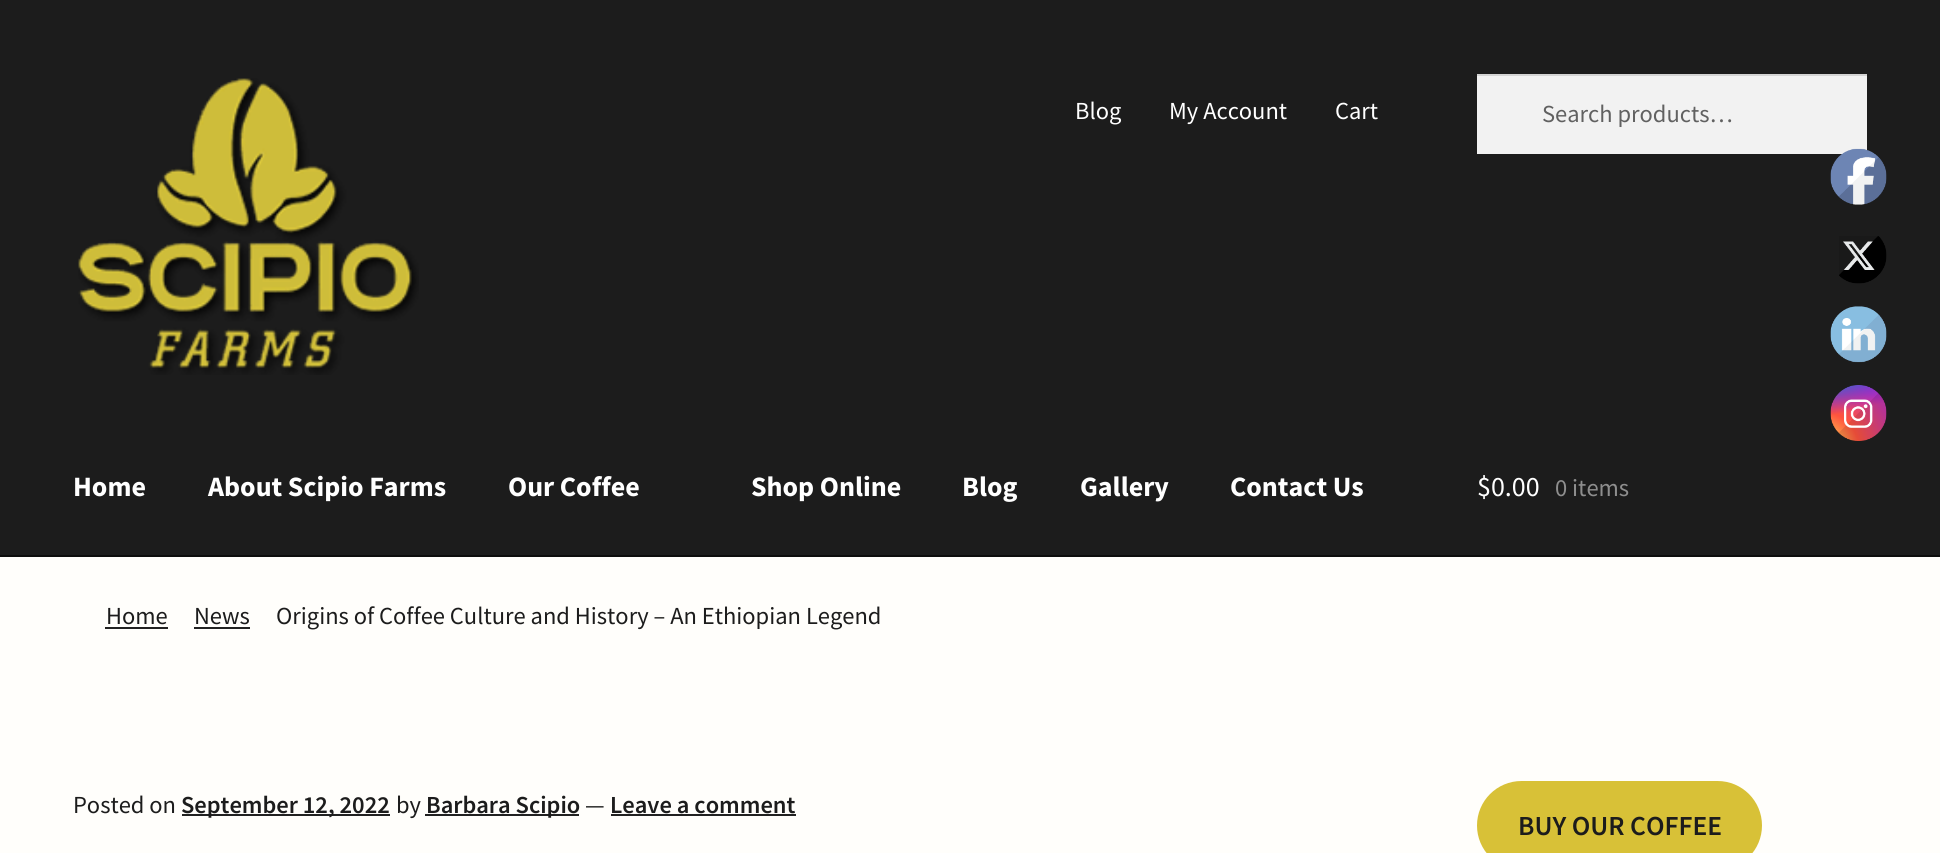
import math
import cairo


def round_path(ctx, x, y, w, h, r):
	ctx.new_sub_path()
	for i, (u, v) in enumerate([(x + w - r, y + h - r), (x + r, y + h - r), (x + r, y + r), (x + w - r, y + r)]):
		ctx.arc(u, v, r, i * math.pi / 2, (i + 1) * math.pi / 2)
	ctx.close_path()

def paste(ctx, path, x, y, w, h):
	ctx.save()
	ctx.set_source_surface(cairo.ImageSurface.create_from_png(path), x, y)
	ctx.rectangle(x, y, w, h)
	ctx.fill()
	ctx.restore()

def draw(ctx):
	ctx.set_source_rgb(1, 0.996, 0.984)
	ctx.paint()
	ctx.set_source_rgb(0.11, 0.11, 0.11)
	ctx.rectangle(0, 0, 1940, 555)
	ctx.fill()
	ctx.set_source_rgb(0.051, 0.051, 0.051)
	ctx.rectangle(0, 555, 1940, 2)
	ctx.fill()
	paste(ctx, 'media/1.png', 78, 78, 341, 297)
	ctx.select_font_face('Source Sans Pro')
	ctx.set_font_size(24.5)
	ctx.set_source_rgb(1, 1, 1)
	for x, y, s in [
		(1075, 119, 'Blog'),
		(1169, 119, 'My Account'),
		(1335, 119, 'Cart'),
	]:
		ctx.move_to(x, y)
		ctx.show_text(s)
	ctx.set_source_rgb(0.949, 0.949, 0.949)
	ctx.rectangle(1477, 76, 390, 78)
	ctx.fill()
	ctx.set_source_rgb(0.831, 0.831, 0.831)
	ctx.rectangle(1477, 74, 390, 2)
	ctx.fill()
	ctx.set_source_rgb(0.38, 0.38, 0.38)
	ctx.move_to(1542, 122)
	ctx.show_text('Search products…')
	ctx.select_font_face('Source Sans Pro', cairo.FONT_SLANT_NORMAL, cairo.FONT_WEIGHT_BOLD)
	ctx.set_font_size(28)
	ctx.set_source_rgb(1, 1, 1)
	for x, y, s in [
		(73, 496, 'Home'),
		(208, 496, 'About Scipio Farms'),
		(508, 496, 'Our Coffee'),
		(751, 496, 'Shop Online'),
		(962, 496, 'Blog'),
		(1080, 496, 'Gallery'),
		(1230, 496, 'Contact Us'),
	]:
		ctx.move_to(x, y)
		ctx.show_text(s)
	ctx.select_font_face('Source Sans Pro')
	ctx.move_to(1477, 496)
	ctx.show_text('$0.00')
	ctx.set_font_size(24.5)
	ctx.set_source_rgb(0.557, 0.557, 0.557)
	ctx.move_to(1555, 496)
	ctx.show_text('0 items')
	ctx.set_source_rgb(0.11, 0.11, 0.11)
	ctx.move_to(106, 624)
	ctx.show_text('Home')
	ctx.set_source_rgb(0.129, 0.129, 0.129)
	ctx.rectangle(105, 627, 63, 2)
	ctx.fill()
	ctx.set_source_rgb(0.11, 0.11, 0.11)
	ctx.move_to(194, 624)
	ctx.show_text('News')
	ctx.set_source_rgb(0.129, 0.129, 0.129)
	ctx.rectangle(194, 627, 56, 2)
	ctx.fill()
	ctx.set_source_rgb(0.11, 0.11, 0.11)
	ctx.move_to(276, 624)
	ctx.show_text('Origins of Coffee Culture and History – An Ethiopian Legend')
	ctx.move_to(73, 813)
	ctx.show_text('Posted on')
	ctx.set_source_rgb(0.129, 0.129, 0.129)
	ctx.rectangle(182, 814, 208, 2)
	ctx.fill()
	ctx.select_font_face('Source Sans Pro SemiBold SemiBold')
	ctx.set_source_rgb(0.11, 0.11, 0.11)
	ctx.move_to(181, 813)
	ctx.show_text('September 12, 2022')
	ctx.select_font_face('Source Sans Pro')
	ctx.move_to(396, 813)
	ctx.show_text('by')
	ctx.set_source_rgb(0.129, 0.129, 0.129)
	ctx.rectangle(425, 814, 154, 2)
	ctx.fill()
	ctx.select_font_face('Source Sans Pro SemiBold SemiBold')
	ctx.set_source_rgb(0.11, 0.11, 0.11)
	ctx.move_to(426, 813)
	ctx.show_text('Barbara Scipio')
	ctx.select_font_face('Source Sans Pro')
	ctx.move_to(585, 813)
	ctx.show_text('—')
	ctx.select_font_face('Source Sans Pro SemiBold SemiBold')
	ctx.move_to(610, 813)
	ctx.show_text('Leave a comment')
	ctx.set_source_rgb(0.129, 0.129, 0.129)
	ctx.rectangle(611, 814, 185, 2)
	ctx.fill()
	ctx.set_source_rgb(0.847, 0.757, 0.216)
	round_path(ctx, 1477, 781, 285, 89, 44.5)
	ctx.fill()
	ctx.set_font_size(27.5)
	ctx.set_source_rgb(0.11, 0.11, 0.11)
	ctx.move_to(1518, 835)
	ctx.show_text('BUY OUR COFFEE')
	paste(ctx, 'media/2.png', 1830, 148, 57, 57)
	paste(ctx, 'media/3.png', 1839, 236, 48, 48)
	paste(ctx, 'media/4.png', 1830, 306, 57, 57)
	paste(ctx, 'media/5.png', 1830, 385, 57, 56)


surface = cairo.ImageSurface(cairo.FORMAT_RGB24, 1940, 853)
ctx = cairo.Context(surface)
options = cairo.FontOptions()
options.set_hint_metrics(cairo.HINT_METRICS_OFF)
options.set_hint_style(cairo.HINT_STYLE_NONE)
ctx.set_font_options(options)
ctx.set_miter_limit(4)
draw(ctx)
surface.write_to_png('image.png')
